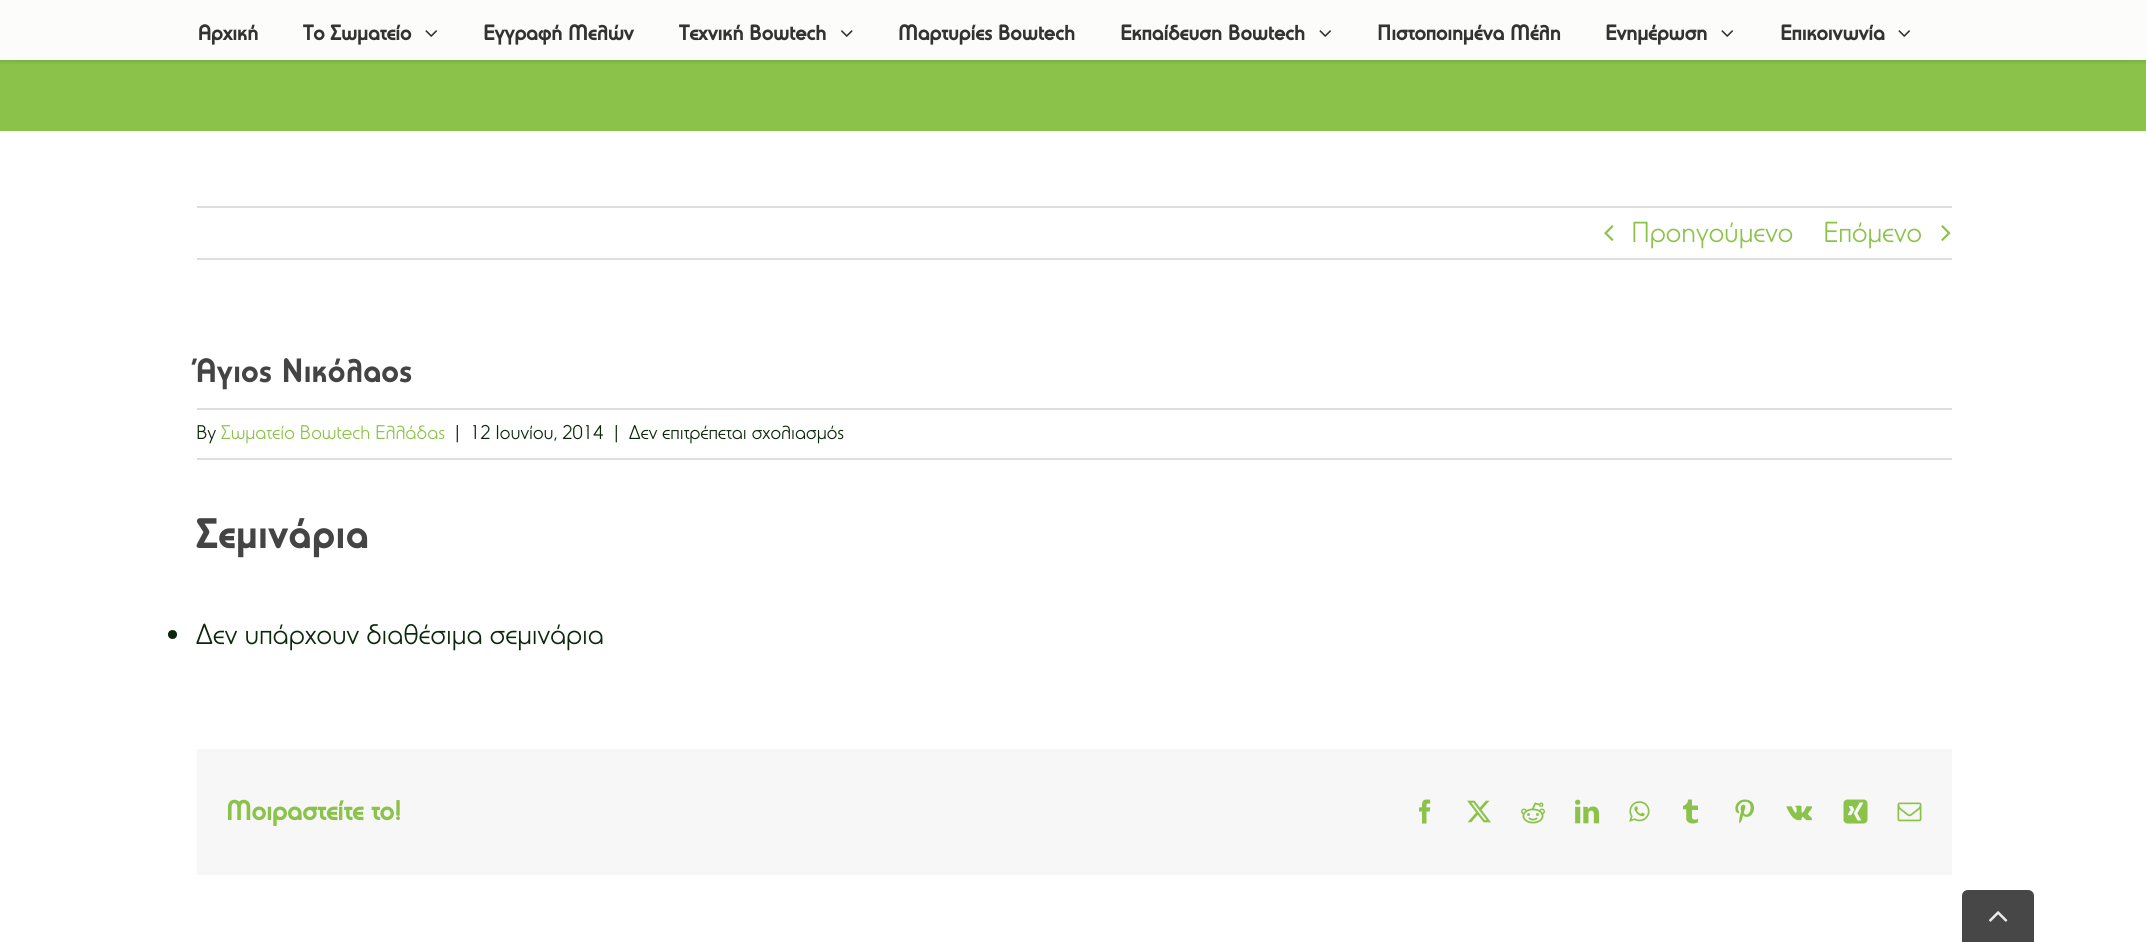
import math
import cairo


def round_path(ctx, x, y, w, h, r):
	ctx.new_sub_path()
	for i, (u, v) in enumerate([(x + w - r, y + h - r), (x + r, y + h - r), (x + r, y + r), (x + w - r, y + r)]):
		ctx.arc(u, v, r, i * math.pi / 2, (i + 1) * math.pi / 2)
	ctx.close_path()

def blur_box(ctx, x, y, w, h, r, blur, alpha):
	ctx.push_group_with_content(cairo.CONTENT_ALPHA)
	ctx.set_operator(cairo.OPERATOR_SOURCE)
	for i in range(15, -16, -2):
		e = blur * i / 6
		if min(w, h) + 2 * e > 0:
			ctx.set_source_rgba(0, 0, 0, alpha * math.erfc((i - 1) / 8.5) / 2)
			round_path(ctx, x - e, y - e, w + 2 * e, h + 2 * e, max(0, min(r + e + blur * .6, min(w, h) / 2 + e)))
			ctx.fill()
	ctx.mask(ctx.pop_group())

def paste(ctx, path, x, y, w, h):
	ctx.save()
	ctx.set_source_surface(cairo.ImageSurface.create_from_png(path), x, y)
	ctx.rectangle(x, y, w, h)
	ctx.fill()
	ctx.restore()

def draw(ctx):
	ctx.set_source_rgb(1, 1, 1)
	ctx.paint()
	ctx.set_source_rgb(0.545, 0.765, 0.29)
	ctx.rectangle(0, 0, 2146, 131)
	ctx.fill()
	ctx.set_source_rgb(0, 0, 0)
	blur_box(ctx, 3, -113, 2141, 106, 0, 37.5, 0.14)
	ctx.save()
	ctx.rectangle(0, 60, 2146, 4)
	ctx.clip()
	blur_box(ctx, 0, 2, 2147, 60, 0, 2, 0.12)
	ctx.restore()
	ctx.set_source_rgba(1, 1, 1, 0.97)
	ctx.rectangle(0, 0, 2146, 60)
	ctx.fill()
	ctx.select_font_face('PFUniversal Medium', cairo.FONT_SLANT_NORMAL, cairo.FONT_WEIGHT_BOLD)
	ctx.set_font_size(21)
	ctx.set_source_rgb(0.2, 0.2, 0.2)
	ctx.move_to(198, 40)
	ctx.show_text('Αρχική')
	ctx.move_to(303, 40)
	ctx.show_text('Το Σωματείο')
	paste(ctx, 'media/1.png', 425, 30, 12, 7)
	ctx.move_to(483, 40)
	ctx.show_text('Εγγραφή Μελών')
	ctx.move_to(679, 40)
	ctx.show_text('Τεχνική Bowtech')
	paste(ctx, 'media/2.png', 841, 30, 12, 7)
	ctx.move_to(898, 40)
	ctx.show_text('Μαρτυρίες Bowtech')
	ctx.move_to(1120, 40)
	ctx.show_text('Εκπαίδευση Bowtech')
	paste(ctx, 'media/1.png', 1319, 30, 12, 7)
	ctx.move_to(1377, 40)
	ctx.show_text('Πιστοποιημένα Μέλη')
	ctx.move_to(1605, 40)
	ctx.show_text('Ενημέρωση')
	paste(ctx, 'media/1.png', 1721, 30, 12, 7)
	ctx.move_to(1780, 40)
	ctx.show_text('Επικοινωνία')
	paste(ctx, 'media/1.png', 1898, 30, 12, 7)
	ctx.set_source_rgb(0.878, 0.871, 0.871)
	ctx.rectangle(197, 206, 1755, 2)
	ctx.fill()
	ctx.rectangle(197, 258, 1755, 2)
	ctx.fill()
	paste(ctx, 'media/3.png', 1604, 225, 10, 16)
	ctx.select_font_face('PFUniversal')
	ctx.set_font_size(28.5)
	ctx.set_source_rgb(0.545, 0.765, 0.29)
	ctx.move_to(1631, 242)
	ctx.show_text('Προηγούμενο')
	ctx.move_to(1823, 242)
	ctx.show_text('Επόμενο')
	paste(ctx, 'media/4.png', 1941, 225, 10, 16)
	ctx.select_font_face('PFUniversal', cairo.FONT_SLANT_NORMAL, cairo.FONT_WEIGHT_BOLD)
	ctx.set_font_size(33)
	ctx.set_source_rgb(0.267, 0.267, 0.267)
	ctx.move_to(196, 382)
	ctx.show_text('Άγιος Νικόλαος')
	ctx.set_source_rgb(0.878, 0.871, 0.871)
	ctx.rectangle(197, 408, 1755, 2)
	ctx.fill()
	ctx.rectangle(197, 458, 1755, 2)
	ctx.fill()
	ctx.select_font_face('PFUniversal')
	ctx.set_font_size(19.5)
	ctx.set_source_rgb(0.047, 0.157, 0.047)
	ctx.move_to(196, 439)
	ctx.show_text('By')
	ctx.set_source_rgb(0.545, 0.765, 0.29)
	ctx.move_to(221, 439)
	ctx.show_text('Σωματείο Bowtech Ελλάδας')
	ctx.set_source_rgb(0.047, 0.157, 0.047)
	for x, y, s in [
		(452, 439, '|'),
		(470, 439, '12 Ιουνίου, 2014'),
		(611, 439, '|'),
		(629, 439, 'Δεν επιτρέπεται σχολιασμός'),
	]:
		ctx.move_to(x, y)
		ctx.show_text(s)
	ctx.select_font_face('PFUniversal', cairo.FONT_SLANT_NORMAL, cairo.FONT_WEIGHT_BOLD)
	ctx.set_font_size(42)
	ctx.set_source_rgb(0.267, 0.267, 0.267)
	ctx.move_to(196, 548)
	ctx.show_text('Σεμινάρια')
	ctx.set_source_rgb(0.047, 0.157, 0.047)
	ctx.new_path()
	ctx.arc(172.5, 634.5, 4.5, 0, 2 * math.pi)
	ctx.fill()
	ctx.select_font_face('PFUniversal')
	ctx.set_font_size(28.5)
	ctx.move_to(196, 644)
	ctx.show_text('Δεν υπάρχουν διαθέσιμα σεμινάρια')
	ctx.set_source_rgb(0.965, 0.965, 0.965)
	ctx.rectangle(197, 749, 1755, 126)
	ctx.fill()
	ctx.select_font_face('PFUniversal Medium', cairo.FONT_SLANT_NORMAL, cairo.FONT_WEIGHT_BOLD)
	ctx.set_font_size(27)
	ctx.set_source_rgb(0.545, 0.765, 0.29)
	ctx.move_to(226, 820)
	ctx.show_text('Μοιραστείτε το!')
	paste(ctx, 'media/5.png', 1419, 799, 12, 25)
	paste(ctx, 'media/6.png', 1467, 800, 24, 23)
	paste(ctx, 'media/7.png', 1521, 802, 24, 22)
	paste(ctx, 'media/8.png', 1575, 799, 24, 25)
	paste(ctx, 'media/9.png', 1629, 801, 21, 21)
	paste(ctx, 'media/10.png', 1683, 799, 15, 25)
	paste(ctx, 'media/11.png', 1735, 799, 19, 25)
	paste(ctx, 'media/12.png', 1786, 805, 27, 16)
	paste(ctx, 'media/13.png', 1843, 799, 25, 25)
	paste(ctx, 'media/14.png', 1897, 802, 25, 20)
	ctx.set_source_rgb(0.278, 0.278, 0.278)
	ctx.new_path()
	ctx.move_to(1968, 890)
	ctx.line_to(2028, 890)
	ctx.curve_to(2031.5, 890, 2034, 892.5, 2034, 896)
	ctx.line_to(2034, 942)
	ctx.line_to(1962, 942)
	ctx.line_to(1962, 896)
	ctx.curve_to(1962, 892.5, 1964.5, 890, 1968, 890)
	ctx.close_path()
	ctx.fill()
	paste(ctx, 'media/15.png', 1989, 911, 19, 11)


surface = cairo.ImageSurface(cairo.FORMAT_RGB24, 2146, 942)
ctx = cairo.Context(surface)
options = cairo.FontOptions()
options.set_hint_metrics(cairo.HINT_METRICS_OFF)
options.set_hint_style(cairo.HINT_STYLE_NONE)
ctx.set_font_options(options)
ctx.set_miter_limit(4)
draw(ctx)
surface.write_to_png('image.png')
